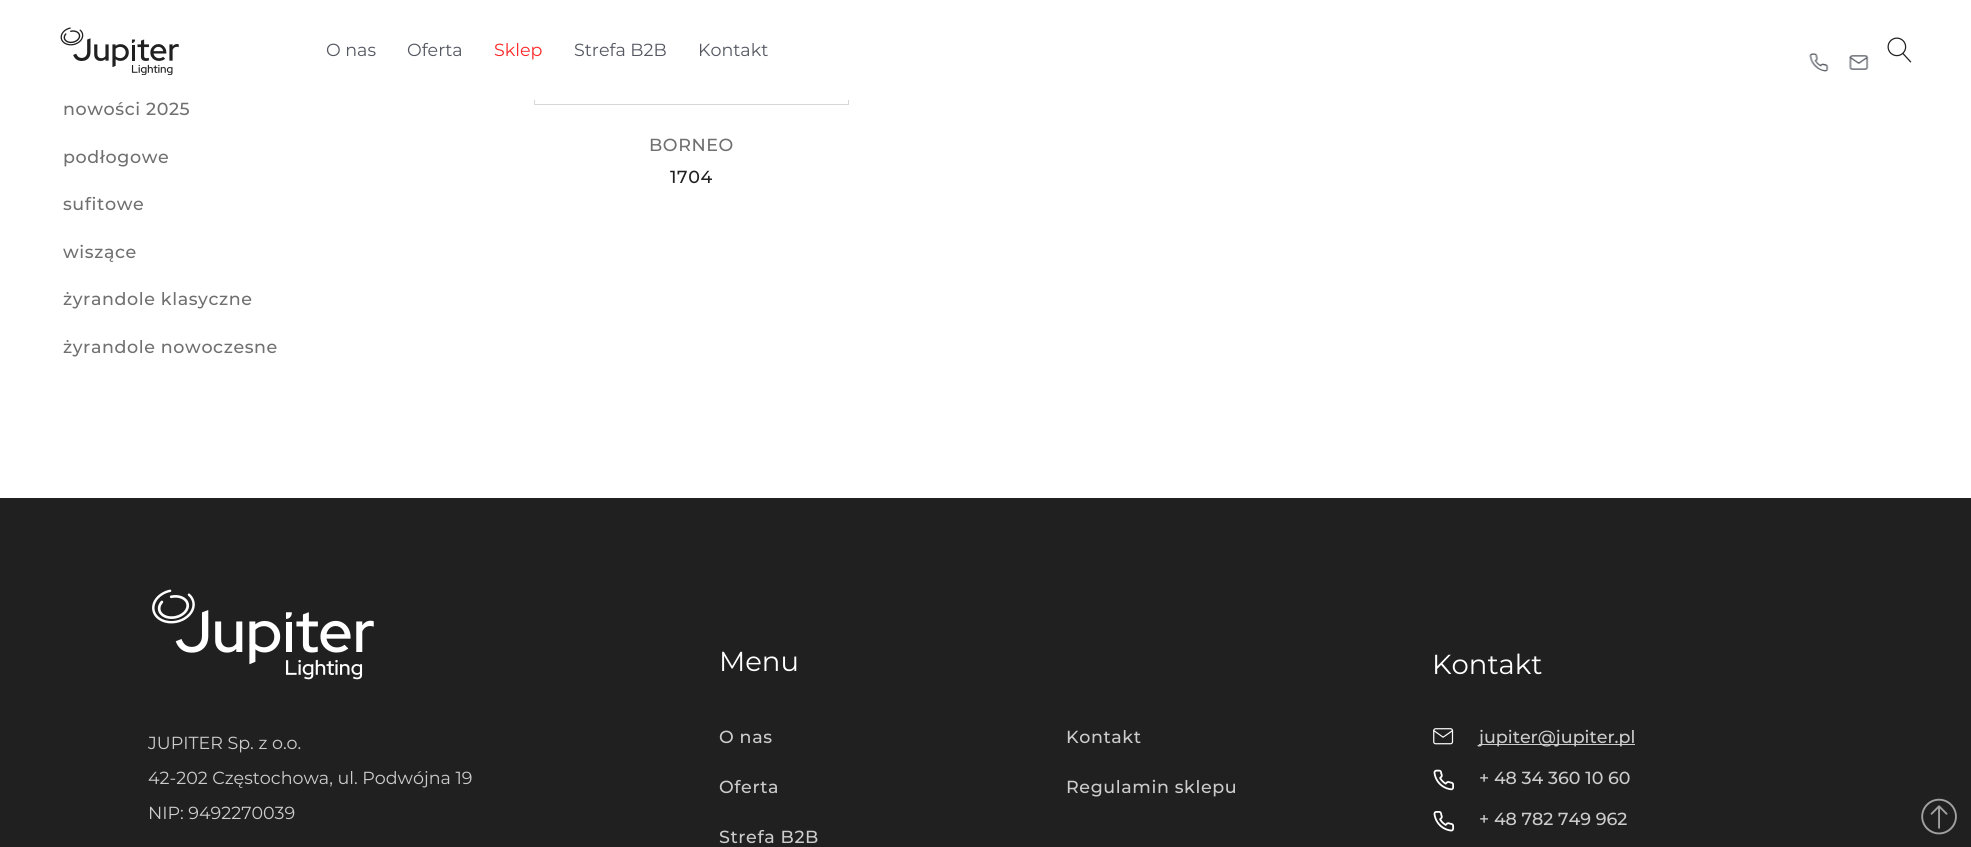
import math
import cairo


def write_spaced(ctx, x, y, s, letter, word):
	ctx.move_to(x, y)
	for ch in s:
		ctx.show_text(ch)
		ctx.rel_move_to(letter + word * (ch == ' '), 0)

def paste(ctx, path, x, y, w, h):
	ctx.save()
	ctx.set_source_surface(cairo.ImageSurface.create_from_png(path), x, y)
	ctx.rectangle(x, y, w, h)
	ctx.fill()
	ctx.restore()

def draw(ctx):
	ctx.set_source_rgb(1, 1, 1)
	ctx.paint()
	ctx.rectangle(534.5, -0.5, 314, 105)
	ctx.set_source_rgb(0.843, 0.843, 0.843)
	ctx.set_line_width(1)
	ctx.stroke()
	ctx.set_source_rgb(1, 1, 1)
	ctx.rectangle(534, 0, 315, 100)
	ctx.fill()
	paste(ctx, 'media/1.png', 60, 27, 119, 48)
	ctx.select_font_face('Montserrat')
	ctx.set_font_size(17.5)
	ctx.set_source_rgb(0.329, 0.341, 0.376)
	ctx.move_to(326, 56)
	ctx.show_text('O nas')
	ctx.move_to(407, 56)
	ctx.show_text('Oferta')
	ctx.set_source_rgb(1, 0.153, 0.153)
	ctx.move_to(494, 56)
	ctx.show_text('Sklep')
	ctx.set_source_rgb(0.329, 0.341, 0.376)
	ctx.move_to(574, 56)
	ctx.show_text('Strefa B2B')
	ctx.move_to(698, 56)
	ctx.show_text('Kontakt')
	paste(ctx, 'media/2.png', 1809, 53, 20, 19)
	paste(ctx, 'media/3.png', 1849, 55, 20, 15)
	paste(ctx, 'media/4.png', 1887, 37, 25, 26)
	ctx.select_font_face('Montserrat Medium')
	ctx.set_source_rgb(0.439, 0.439, 0.439)
	for x, y, s in [
		(63, 115, 'nowości 2025'),
		(63, 163, 'podłogowe'),
		(63, 210, 'sufitowe'),
		(63, 258, 'wiszące'),
		(63, 305, 'żyrandole klasyczne'),
		(63, 353, 'żyrandole nowoczesne'),
		(649, 151, 'BORNEO'),
	]:
		write_spaced(ctx, x, y, s, 0.6, 0)
	ctx.set_source_rgb(0.125, 0.125, 0.125)
	write_spaced(ctx, 670, 183, '1704', 0.6, 0)
	ctx.rectangle(0, 498, 1971, 349)
	ctx.fill()
	paste(ctx, 'media/5.png', 152, 589, 222, 91)
	ctx.select_font_face('Montserrat')
	ctx.set_source_rgb(0.8, 0.8, 0.8)
	for x, y, s in [
		(148, 749, 'JUPITER Sp. z o.o.'),
		(148, 784, '42-202 Częstochowa, ul. Podwójna 19'),
		(148, 819, 'NIP: 9492270039'),
	]:
		ctx.move_to(x, y)
		ctx.show_text(s)
	ctx.set_font_size(27.5)
	ctx.set_source_rgb(1, 1, 1)
	ctx.move_to(719, 671)
	ctx.show_text('Menu')
	ctx.select_font_face('Montserrat Medium')
	ctx.set_font_size(17.5)
	ctx.set_source_rgb(0.8, 0.8, 0.8)
	for x, y, s in [
		(719, 743, 'O nas'),
		(1066, 743, 'Kontakt'),
		(719, 793, 'Oferta'),
		(1066, 793, 'Regulamin sklepu'),
		(719, 843, 'Strefa B2B'),
	]:
		write_spaced(ctx, x, y, s, 0.6, 0)
	ctx.select_font_face('Montserrat')
	ctx.set_font_size(27.5)
	ctx.set_source_rgb(1, 1, 1)
	ctx.move_to(1432, 674)
	ctx.show_text('Kontakt')
	paste(ctx, 'media/6.png', 1433, 728, 21, 17)
	ctx.set_source_rgb(0.8, 0.8, 0.8)
	ctx.rectangle(1479, 744, 156, 1)
	ctx.fill()
	ctx.select_font_face('Montserrat Medium')
	ctx.set_font_size(17.5)
	ctx.move_to(1479, 743)
	ctx.show_text('jupiter@jupiter.pl')
	paste(ctx, 'media/7.png', 1433, 769, 22, 22)
	ctx.move_to(1479, 784)
	ctx.show_text('+ 48 34 360 10 60')
	paste(ctx, 'media/8.png', 1433, 811, 22, 21)
	ctx.move_to(1479, 825)
	ctx.show_text('+ 48 782 749 962')
	paste(ctx, 'media/9.png', 1921, 798, 36, 37)


surface = cairo.ImageSurface(cairo.FORMAT_RGB24, 1971, 847)
ctx = cairo.Context(surface)
options = cairo.FontOptions()
options.set_hint_metrics(cairo.HINT_METRICS_OFF)
options.set_hint_style(cairo.HINT_STYLE_NONE)
ctx.set_font_options(options)
ctx.set_miter_limit(4)
draw(ctx)
surface.write_to_png('image.png')
